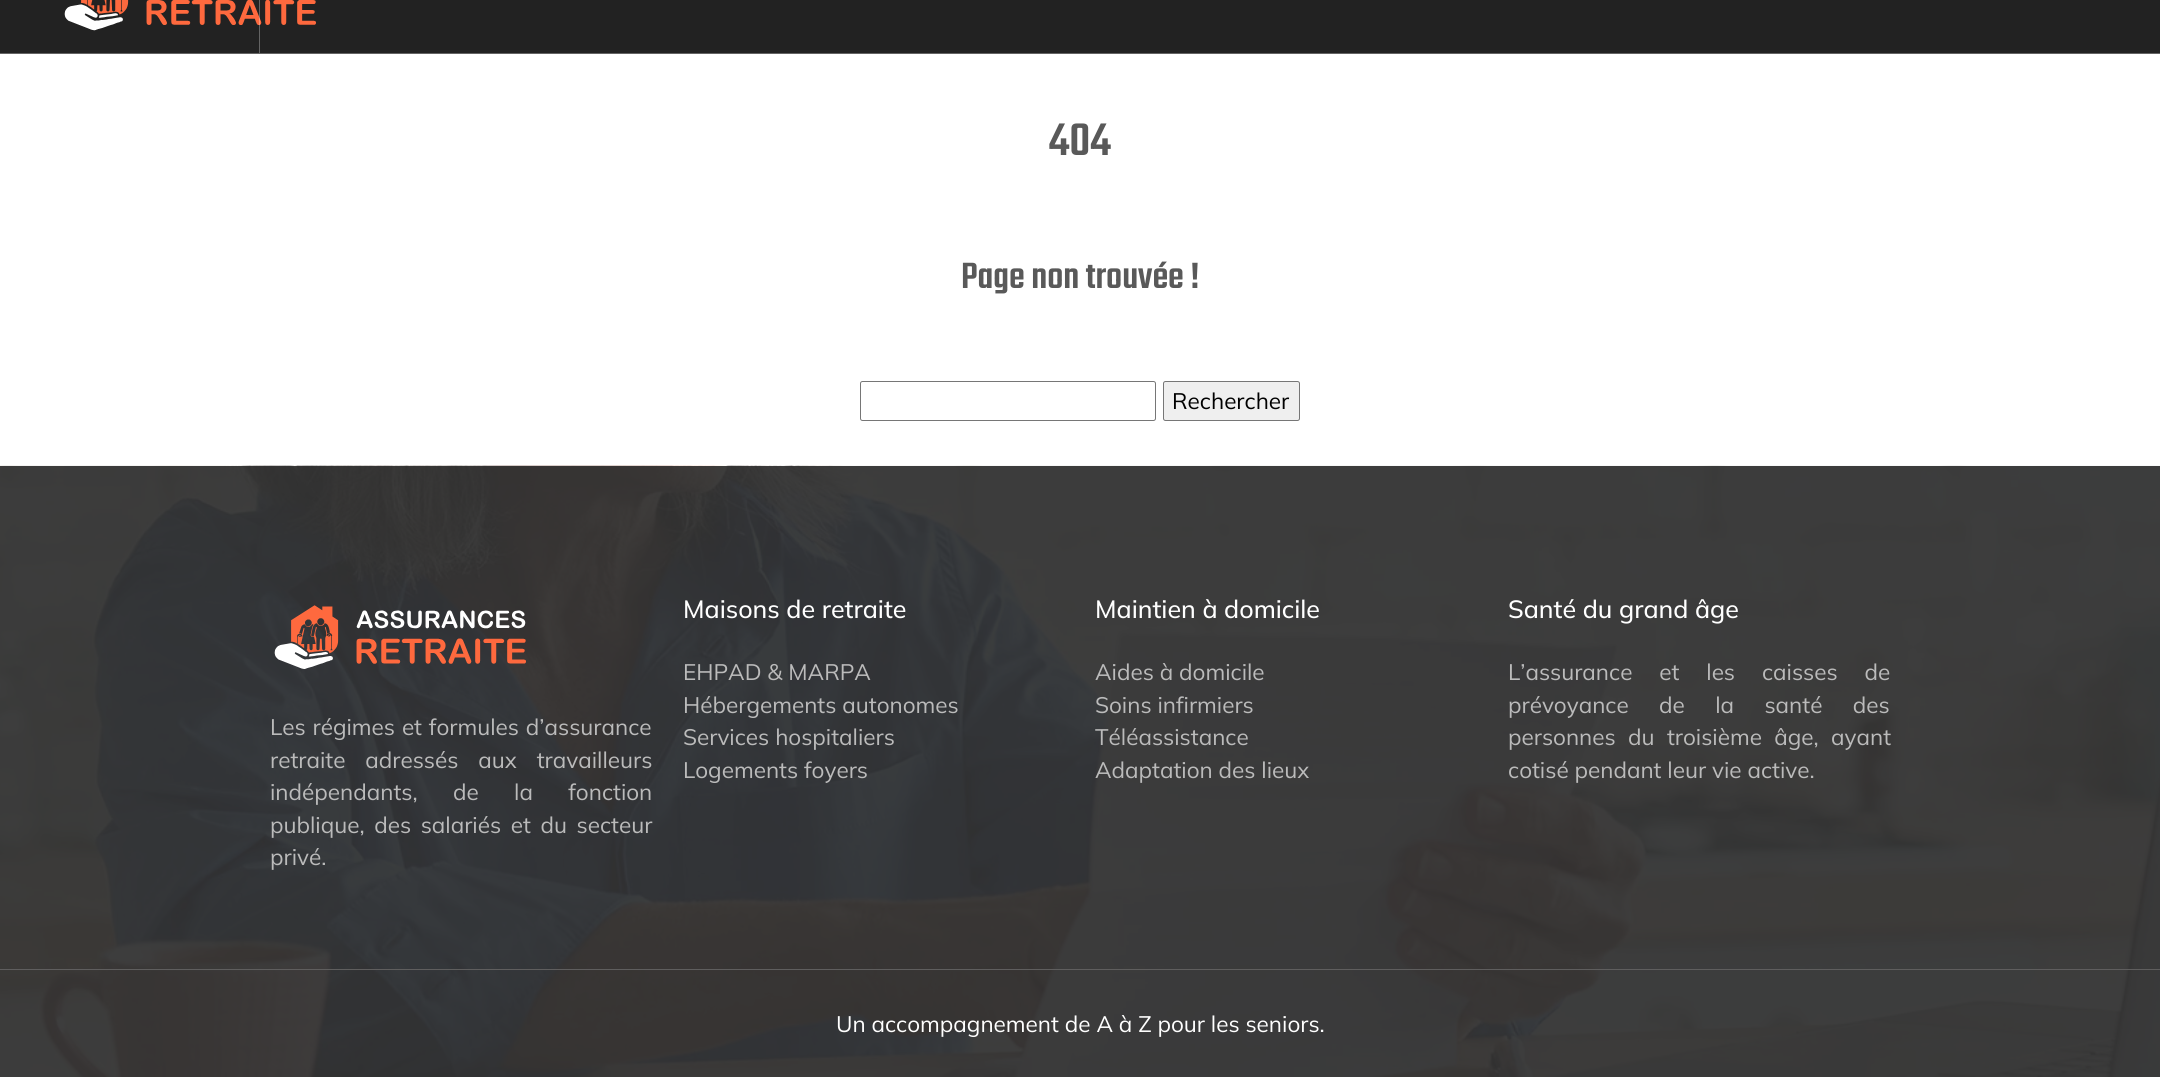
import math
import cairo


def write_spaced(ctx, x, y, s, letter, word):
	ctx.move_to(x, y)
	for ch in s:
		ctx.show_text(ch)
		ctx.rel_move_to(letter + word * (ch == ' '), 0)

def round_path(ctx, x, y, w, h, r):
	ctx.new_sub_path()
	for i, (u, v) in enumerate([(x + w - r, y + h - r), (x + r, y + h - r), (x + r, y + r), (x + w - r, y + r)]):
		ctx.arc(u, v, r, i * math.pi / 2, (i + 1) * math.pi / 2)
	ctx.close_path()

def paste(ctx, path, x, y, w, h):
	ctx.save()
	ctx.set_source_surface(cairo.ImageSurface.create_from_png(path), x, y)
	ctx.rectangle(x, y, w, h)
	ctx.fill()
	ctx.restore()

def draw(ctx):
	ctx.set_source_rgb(1, 1, 1)
	ctx.paint()
	ctx.set_source_rgb(0.133, 0.133, 0.133)
	ctx.rectangle(0, 0, 2160, 53)
	ctx.fill()
	ctx.set_source_rgb(0.392, 0.392, 0.392)
	ctx.rectangle(0, 53, 2160, 1)
	ctx.fill()
	paste(ctx, 'media/1.png', 64, 0, 252, 31)
	ctx.set_source_rgba(1, 1, 1, 0.3)
	ctx.rectangle(259, 0, 1, 53)
	ctx.fill()
	ctx.select_font_face('Teko Medium')
	ctx.set_font_size(50)
	ctx.set_source_rgb(0.349, 0.349, 0.349)
	ctx.move_to(1049, 155)
	ctx.show_text('404')
	ctx.set_font_size(40)
	ctx.move_to(961, 288)
	ctx.show_text('Page non trouvée !')
	round_path(ctx, 860.5, 381.5, 295, 39, 2)
	ctx.set_source_rgb(0.463, 0.463, 0.463)
	ctx.set_line_width(1)
	ctx.stroke()
	ctx.set_source_rgb(0.937, 0.937, 0.937)
	round_path(ctx, 1163.5, 381.5, 136, 39, 2)
	ctx.fill_preserve()
	ctx.set_source_rgb(0.463, 0.463, 0.463)
	ctx.stroke()
	ctx.select_font_face('Mulish')
	ctx.set_font_size(22.5)
	ctx.set_source_rgb(0, 0, 0)
	ctx.move_to(1172, 409)
	ctx.show_text('Rechercher')
	paste(ctx, 'media/2.png', 0, 465, 2160, 612)
	paste(ctx, 'media/3.png', 274, 605, 252, 64)
	ctx.set_source_rgb(0.733, 0.733, 0.733)
	write_spaced(ctx, 270, 735, 'Les régimes et formules d’assurance', 0, 1)
	write_spaced(ctx, 270, 768, 'retraite adressés aux travailleurs', 0, 14)
	write_spaced(ctx, 270, 800, 'indépendants, de la fonction', 0, 29.5)
	write_spaced(ctx, 270, 833, 'publique, des salariés et du secteur', 0, 3.75)
	ctx.move_to(270, 865)
	ctx.show_text('privé.')
	ctx.select_font_face('Mulish Medium')
	ctx.set_font_size(25)
	ctx.set_source_rgb(1, 1, 1)
	ctx.move_to(683, 618)
	ctx.show_text('Maisons de retraite')
	ctx.select_font_face('Mulish')
	ctx.set_font_size(22.5)
	ctx.set_source_rgb(0.733, 0.733, 0.733)
	for x, y, s in [
		(683, 680, 'EHPAD & MARPA'),
		(683, 713, 'Hébergements autonomes'),
		(683, 745, 'Services hospitaliers'),
		(683, 778, 'Logements foyers'),
	]:
		ctx.move_to(x, y)
		ctx.show_text(s)
	ctx.select_font_face('Mulish Medium')
	ctx.set_font_size(25)
	ctx.set_source_rgb(1, 1, 1)
	ctx.move_to(1095, 618)
	ctx.show_text('Maintien à domicile')
	ctx.select_font_face('Mulish')
	ctx.set_font_size(22.5)
	ctx.set_source_rgb(0.733, 0.733, 0.733)
	for x, y, s in [
		(1095, 680, 'Aides à domicile'),
		(1095, 713, 'Soins infirmiers'),
		(1095, 745, 'Téléassistance'),
		(1095, 778, 'Adaptation des lieux'),
	]:
		ctx.move_to(x, y)
		ctx.show_text(s)
	ctx.select_font_face('Mulish Medium')
	ctx.set_font_size(25)
	ctx.set_source_rgb(1, 1, 1)
	ctx.move_to(1508, 618)
	ctx.show_text('Santé du grand âge')
	ctx.select_font_face('Mulish')
	ctx.set_font_size(22.5)
	ctx.set_source_rgb(0.733, 0.733, 0.733)
	write_spaced(ctx, 1508, 680, 'L’assurance et les caisses de', 0, 21)
	write_spaced(ctx, 1508, 713, 'prévoyance de la santé des', 0, 24.5)
	write_spaced(ctx, 1508, 745, 'personnes du troisième âge, ayant', 0, 6.5)
	ctx.move_to(1508, 778)
	ctx.show_text('cotisé pendant leur vie active.')
	ctx.set_source_rgb(0.373, 0.369, 0.369)
	ctx.rectangle(0, 969, 2160, 1)
	ctx.fill()
	ctx.set_source_rgb(1, 1, 1)
	ctx.move_to(836, 1032)
	ctx.show_text('Un accompagnement de A à Z pour les seniors.')


surface = cairo.ImageSurface(cairo.FORMAT_RGB24, 2160, 1082)
ctx = cairo.Context(surface)
options = cairo.FontOptions()
options.set_hint_metrics(cairo.HINT_METRICS_OFF)
options.set_hint_style(cairo.HINT_STYLE_NONE)
ctx.set_font_options(options)
ctx.set_miter_limit(4)
draw(ctx)
surface.write_to_png('image.png')
